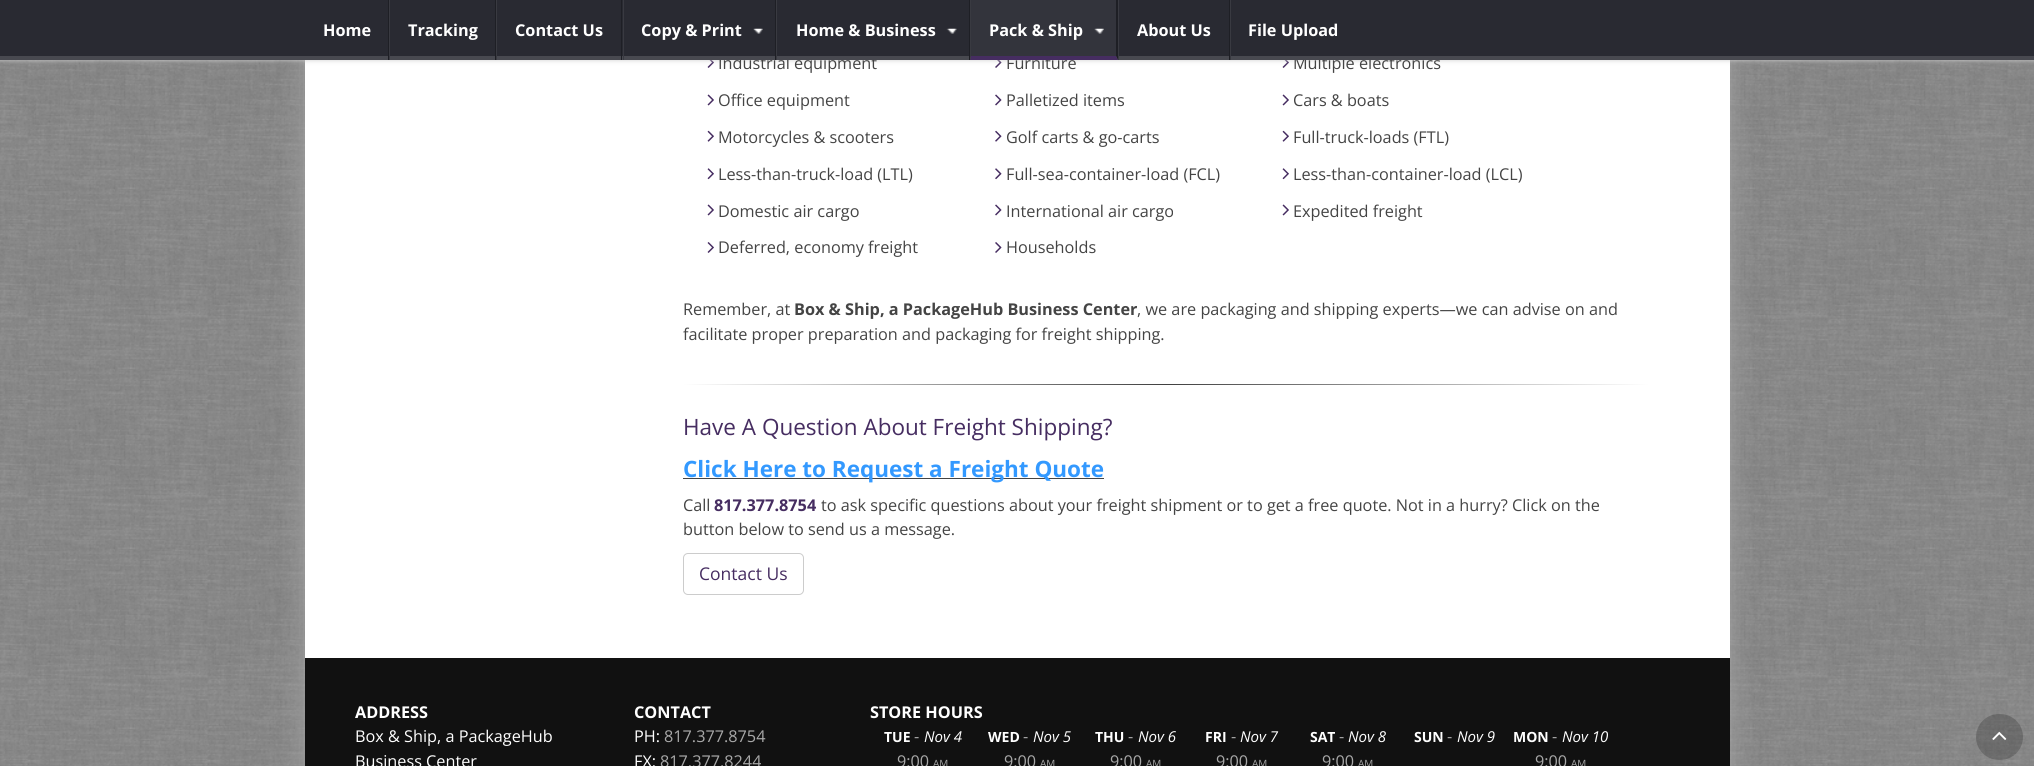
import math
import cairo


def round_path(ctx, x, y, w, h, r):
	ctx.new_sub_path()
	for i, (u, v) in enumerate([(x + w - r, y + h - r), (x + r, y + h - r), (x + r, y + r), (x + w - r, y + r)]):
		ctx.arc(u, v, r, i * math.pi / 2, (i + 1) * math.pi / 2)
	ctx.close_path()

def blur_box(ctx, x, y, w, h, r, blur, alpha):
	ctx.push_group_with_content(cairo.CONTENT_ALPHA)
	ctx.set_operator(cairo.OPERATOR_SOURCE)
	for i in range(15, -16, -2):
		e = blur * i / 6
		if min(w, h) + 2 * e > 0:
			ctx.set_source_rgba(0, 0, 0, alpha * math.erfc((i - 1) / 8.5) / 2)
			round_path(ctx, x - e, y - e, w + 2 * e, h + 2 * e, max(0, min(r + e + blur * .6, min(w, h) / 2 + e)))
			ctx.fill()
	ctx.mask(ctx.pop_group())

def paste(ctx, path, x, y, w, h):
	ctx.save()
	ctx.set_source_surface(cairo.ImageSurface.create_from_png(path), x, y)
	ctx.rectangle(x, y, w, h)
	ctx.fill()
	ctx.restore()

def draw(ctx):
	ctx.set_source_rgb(1, 1, 1)
	ctx.paint()
	paste(ctx, 'media/1.png', 0, 60, 2034, 706)
	ctx.set_source_rgb(0.639, 0.639, 0.639)
	blur_box(ctx, 305, -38, 1425, 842, 0, 12.5, 1)
	ctx.set_source_rgb(1, 1, 1)
	ctx.rectangle(305, 60, 1425, 598)
	ctx.fill()
	paste(ctx, 'media/5.png', 707, 60, 7, 8)
	paste(ctx, 'media/6.png', 995, 60, 7, 8)
	paste(ctx, 'media/5.png', 1282, 60, 7, 8)
	ctx.set_source_rgb(0.8, 0.8, 0.8)
	blur_box(ctx, 0, 0, 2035, 60, 0, 2.5, 1)
	ctx.set_source_rgb(0.161, 0.165, 0.196)
	ctx.rectangle(0, 0, 2034, 56)
	ctx.fill()
	ctx.select_font_face('Open Sans')
	ctx.set_font_size(16.25)
	ctx.set_source_rgb(0.267, 0.267, 0.267)
	for x, y, s in [
		(718, 69, 'Industrial equipment'),
		(1006, 69, 'Furniture'),
		(1293, 69, 'Multiple electronics'),
	]:
		ctx.move_to(x, y)
		ctx.show_text(s)
	ctx.set_source_rgb(0.282, 0.286, 0.314)
	ctx.rectangle(0, 56, 2034, 4)
	ctx.fill()
	ctx.set_source_rgb(0.118, 0.122, 0.145)
	ctx.rectangle(388, 0, 1, 60)
	ctx.fill()
	ctx.select_font_face('Open Sans', cairo.FONT_SLANT_NORMAL, cairo.FONT_WEIGHT_BOLD)
	ctx.set_source_rgb(1, 1, 1)
	ctx.move_to(323, 36)
	ctx.show_text('Home')
	ctx.set_source_rgb(0.118, 0.122, 0.145)
	ctx.rectangle(495, 0, 1, 60)
	ctx.fill()
	ctx.set_source_rgb(0.224, 0.227, 0.255)
	ctx.rectangle(389, 0, 1, 60)
	ctx.fill()
	ctx.set_source_rgb(1, 1, 1)
	ctx.move_to(408, 36)
	ctx.show_text('Tracking')
	ctx.set_source_rgb(0.118, 0.122, 0.145)
	ctx.rectangle(621, 0, 1, 60)
	ctx.fill()
	ctx.set_source_rgb(0.224, 0.227, 0.255)
	ctx.rectangle(496, 0, 1, 60)
	ctx.fill()
	ctx.set_source_rgb(1, 1, 1)
	ctx.move_to(515, 36)
	ctx.show_text('Contact Us')
	ctx.set_source_rgb(0.118, 0.122, 0.145)
	ctx.rectangle(775, 0, 1, 60)
	ctx.fill()
	ctx.set_source_rgb(0.224, 0.227, 0.255)
	ctx.rectangle(623, 0, 1, 60)
	ctx.fill()
	ctx.set_source_rgb(1, 1, 1)
	ctx.move_to(641, 36)
	ctx.show_text('Copy & Print')
	paste(ctx, 'media/2.png', 753, 28, 10, 6)
	ctx.set_source_rgb(0.118, 0.122, 0.145)
	ctx.rectangle(969, 0, 1, 60)
	ctx.fill()
	ctx.set_source_rgb(0.224, 0.227, 0.255)
	ctx.rectangle(776, 0, 1, 60)
	ctx.fill()
	ctx.set_source_rgb(1, 1, 1)
	ctx.move_to(796, 36)
	ctx.show_text('Home & Business')
	paste(ctx, 'media/3.png', 946, 28, 11, 6)
	ctx.set_source_rgba(1, 1, 1, 0.05)
	ctx.rectangle(970, 0, 148, 60)
	ctx.fill()
	ctx.set_source_rgb(0.118, 0.122, 0.145)
	ctx.new_path()
	ctx.move_to(1118, 0)
	ctx.line_to(1118, 60)
	ctx.line_to(1116, 56)
	ctx.line_to(1116, 0)
	ctx.close_path()
	ctx.fill()
	ctx.set_source_rgb(0.275, 0.176, 0.38)
	ctx.new_path()
	ctx.move_to(1118, 60)
	ctx.line_to(970, 60)
	ctx.line_to(971, 56)
	ctx.line_to(1116, 56)
	ctx.close_path()
	ctx.fill()
	ctx.set_source_rgb(0.224, 0.227, 0.255)
	ctx.new_path()
	ctx.move_to(970, 60)
	ctx.line_to(970, 0)
	ctx.line_to(971, 0)
	ctx.line_to(971, 56)
	ctx.close_path()
	ctx.fill()
	ctx.set_source_rgb(1, 1, 1)
	ctx.move_to(989, 36)
	ctx.show_text('Pack & Ship')
	paste(ctx, 'media/4.png', 1094, 28, 10, 6)
	ctx.set_source_rgb(0.118, 0.122, 0.145)
	ctx.rectangle(1229, 0, 1, 60)
	ctx.fill()
	ctx.set_source_rgb(0.224, 0.227, 0.255)
	ctx.rectangle(1118, 0, 1, 60)
	ctx.fill()
	ctx.set_source_rgb(1, 1, 1)
	ctx.move_to(1137, 36)
	ctx.show_text('About Us')
	ctx.set_source_rgb(0.224, 0.227, 0.255)
	ctx.rectangle(1230, 0, 1, 60)
	ctx.fill()
	ctx.set_source_rgb(1, 1, 1)
	ctx.move_to(1248, 36)
	ctx.show_text('File Upload')
	paste(ctx, 'media/7.png', 707, 94, 7, 12)
	ctx.select_font_face('Open Sans')
	ctx.set_source_rgb(0.267, 0.267, 0.267)
	ctx.move_to(718, 106)
	ctx.show_text('Office equipment')
	paste(ctx, 'media/8.png', 995, 94, 7, 12)
	ctx.move_to(1006, 106)
	ctx.show_text('Palletized items')
	paste(ctx, 'media/7.png', 1282, 94, 7, 12)
	ctx.move_to(1293, 106)
	ctx.show_text('Cars & boats')
	paste(ctx, 'media/9.png', 707, 130, 7, 12)
	ctx.move_to(718, 143)
	ctx.show_text('Motorcycles & scooters')
	paste(ctx, 'media/10.png', 995, 130, 7, 12)
	ctx.move_to(1006, 143)
	ctx.show_text('Golf carts & go-carts')
	paste(ctx, 'media/9.png', 1282, 130, 7, 12)
	ctx.move_to(1293, 143)
	ctx.show_text('Full-truck-loads (FTL)')
	paste(ctx, 'media/11.png', 707, 168, 7, 12)
	ctx.move_to(718, 180)
	ctx.show_text('Less-than-truck-load (LTL)')
	paste(ctx, 'media/12.png', 995, 168, 7, 12)
	ctx.move_to(1006, 180)
	ctx.show_text('Full-sea-container-load (FCL)')
	paste(ctx, 'media/11.png', 1282, 168, 7, 12)
	ctx.move_to(1293, 180)
	ctx.show_text('Less-than-container-load (LCL)')
	paste(ctx, 'media/7.png', 707, 204, 7, 12)
	ctx.move_to(718, 217)
	ctx.show_text('Domestic air cargo')
	paste(ctx, 'media/8.png', 995, 204, 7, 12)
	ctx.move_to(1006, 217)
	ctx.show_text('International air cargo')
	paste(ctx, 'media/7.png', 1282, 204, 7, 12)
	ctx.move_to(1293, 217)
	ctx.show_text('Expedited freight')
	paste(ctx, 'media/13.png', 707, 242, 7, 11)
	ctx.move_to(718, 253)
	ctx.show_text('Deferred, economy freight')
	paste(ctx, 'media/14.png', 995, 242, 7, 11)
	ctx.move_to(1006, 253)
	ctx.show_text('Households')
	ctx.move_to(683, 315)
	ctx.show_text('Remember, at')
	ctx.select_font_face('Open Sans', cairo.FONT_SLANT_NORMAL, cairo.FONT_WEIGHT_BOLD)
	ctx.move_to(794, 315)
	ctx.show_text('Box & Ship, a PackageHub Business Center')
	ctx.select_font_face('Open Sans')
	ctx.move_to(1137, 315)
	ctx.show_text(', we are packaging and shipping experts—we can advise on and')
	ctx.move_to(683, 340)
	ctx.show_text('facilitate proper preparation and packaging for freight shipping.')
	gradient = cairo.LinearGradient(683, 384, 1649, 384)
	gradient.add_color_stop_rgba(0, 1, 1, 1, 1)
	gradient.add_color_stop_rgba(0.5, 0.251, 0.251, 0.251, 1)
	gradient.add_color_stop_rgba(1, 1, 1, 1, 1)
	ctx.set_source(gradient)
	ctx.rectangle(683, 384, 966, 1)
	ctx.fill()
	ctx.set_font_size(22.5)
	ctx.set_source_rgb(0.275, 0.176, 0.38)
	ctx.move_to(683, 435)
	ctx.show_text('Have A Question About Freight Shipping?')
	ctx.set_source_rgb(0.267, 0.267, 0.267)
	ctx.rectangle(683, 478, 421, 1)
	ctx.fill()
	ctx.select_font_face('Open Sans', cairo.FONT_SLANT_NORMAL, cairo.FONT_WEIGHT_BOLD)
	ctx.set_source_rgb(0.2, 0.6, 1)
	ctx.move_to(683, 477)
	ctx.show_text('Click Here to Request a Freight Quote')
	ctx.select_font_face('Open Sans')
	ctx.set_font_size(16.25)
	ctx.set_source_rgb(0.267, 0.267, 0.267)
	ctx.move_to(683, 511)
	ctx.show_text('Call')
	ctx.select_font_face('Open Sans', cairo.FONT_SLANT_NORMAL, cairo.FONT_WEIGHT_BOLD)
	ctx.set_source_rgb(0.275, 0.176, 0.38)
	ctx.move_to(714, 511)
	ctx.show_text('817.377.8754')
	ctx.select_font_face('Open Sans')
	ctx.set_source_rgb(0.267, 0.267, 0.267)
	ctx.move_to(821, 511)
	ctx.show_text('to ask specific questions about your freight shipment or to get a free quote. Not in a hurry? Click on the')
	ctx.move_to(683, 535)
	ctx.show_text('button below to send us a message.')
	round_path(ctx, 683.5, 553.5, 120, 41, 4.5)
	ctx.set_source_rgb(0.8, 0.8, 0.8)
	ctx.set_line_width(1)
	ctx.stroke()
	ctx.set_font_size(17.5)
	ctx.set_source_rgb(0.275, 0.176, 0.38)
	ctx.move_to(699, 580)
	ctx.show_text('Contact Us')
	ctx.set_source_rgb(0.067, 0.067, 0.067)
	ctx.rectangle(305, 658, 1425, 108)
	ctx.fill()
	ctx.select_font_face('Open Sans', cairo.FONT_SLANT_NORMAL, cairo.FONT_WEIGHT_BOLD)
	ctx.set_font_size(16.25)
	ctx.set_source_rgb(1, 1, 1)
	ctx.move_to(355, 718)
	ctx.show_text('ADDRESS')
	ctx.select_font_face('Open Sans')
	ctx.move_to(355, 742)
	ctx.show_text('Box & Ship, a PackageHub')
	ctx.move_to(355, 767)
	ctx.show_text('Business Center')
	ctx.select_font_face('Open Sans', cairo.FONT_SLANT_NORMAL, cairo.FONT_WEIGHT_BOLD)
	ctx.move_to(634, 718)
	ctx.show_text('CONTACT')
	ctx.select_font_face('Open Sans')
	ctx.move_to(634, 742)
	ctx.show_text('PH:')
	ctx.set_source_rgb(0.659, 0.659, 0.659)
	ctx.move_to(664, 742)
	ctx.show_text('817.377.8754')
	ctx.set_source_rgb(1, 1, 1)
	ctx.move_to(634, 767)
	ctx.show_text('FX:')
	ctx.set_source_rgb(0.659, 0.659, 0.659)
	ctx.move_to(660, 767)
	ctx.show_text('817.377.8244')
	ctx.select_font_face('Open Sans', cairo.FONT_SLANT_NORMAL, cairo.FONT_WEIGHT_BOLD)
	ctx.set_source_rgb(1, 1, 1)
	ctx.move_to(870, 718)
	ctx.show_text('STORE HOURS')
	ctx.set_font_size(14)
	ctx.move_to(884, 742)
	ctx.show_text('TUE')
	ctx.select_font_face('Open Sans')
	ctx.set_font_size(16.25)
	ctx.set_source_rgb(0.659, 0.659, 0.659)
	ctx.move_to(914, 742)
	ctx.show_text('-')
	ctx.select_font_face('Open Sans', cairo.FONT_SLANT_ITALIC)
	ctx.set_font_size(15)
	ctx.set_source_rgb(1, 1, 1)
	ctx.move_to(924, 742)
	ctx.show_text('Nov 4')
	ctx.select_font_face('Open Sans')
	ctx.set_font_size(16.25)
	ctx.set_source_rgb(0.659, 0.659, 0.659)
	ctx.move_to(897, 767)
	ctx.show_text('9:00')
	ctx.set_font_size(10)
	ctx.move_to(933, 767)
	ctx.show_text('AM')
	ctx.select_font_face('Open Sans', cairo.FONT_SLANT_NORMAL, cairo.FONT_WEIGHT_BOLD)
	ctx.set_font_size(14)
	ctx.set_source_rgb(1, 1, 1)
	ctx.move_to(988, 742)
	ctx.show_text('WED')
	ctx.select_font_face('Open Sans')
	ctx.set_font_size(16.25)
	ctx.set_source_rgb(0.659, 0.659, 0.659)
	ctx.move_to(1023, 742)
	ctx.show_text('-')
	ctx.select_font_face('Open Sans', cairo.FONT_SLANT_ITALIC)
	ctx.set_font_size(15)
	ctx.set_source_rgb(1, 1, 1)
	ctx.move_to(1033, 742)
	ctx.show_text('Nov 5')
	ctx.select_font_face('Open Sans')
	ctx.set_font_size(16.25)
	ctx.set_source_rgb(0.659, 0.659, 0.659)
	ctx.move_to(1004, 767)
	ctx.show_text('9:00')
	ctx.set_font_size(10)
	ctx.move_to(1040, 767)
	ctx.show_text('AM')
	ctx.select_font_face('Open Sans', cairo.FONT_SLANT_NORMAL, cairo.FONT_WEIGHT_BOLD)
	ctx.set_font_size(14)
	ctx.set_source_rgb(1, 1, 1)
	ctx.move_to(1095, 742)
	ctx.show_text('THU')
	ctx.select_font_face('Open Sans')
	ctx.set_font_size(16.25)
	ctx.set_source_rgb(0.659, 0.659, 0.659)
	ctx.move_to(1128, 742)
	ctx.show_text('-')
	ctx.select_font_face('Open Sans', cairo.FONT_SLANT_ITALIC)
	ctx.set_font_size(15)
	ctx.set_source_rgb(1, 1, 1)
	ctx.move_to(1138, 742)
	ctx.show_text('Nov 6')
	ctx.select_font_face('Open Sans')
	ctx.set_font_size(16.25)
	ctx.set_source_rgb(0.659, 0.659, 0.659)
	ctx.move_to(1110, 767)
	ctx.show_text('9:00')
	ctx.set_font_size(10)
	ctx.move_to(1146, 767)
	ctx.show_text('AM')
	ctx.select_font_face('Open Sans', cairo.FONT_SLANT_NORMAL, cairo.FONT_WEIGHT_BOLD)
	ctx.set_font_size(14)
	ctx.set_source_rgb(1, 1, 1)
	ctx.move_to(1205, 742)
	ctx.show_text('FRI')
	ctx.select_font_face('Open Sans')
	ctx.set_font_size(16.25)
	ctx.set_source_rgb(0.659, 0.659, 0.659)
	ctx.move_to(1231, 742)
	ctx.show_text('-')
	ctx.select_font_face('Open Sans', cairo.FONT_SLANT_ITALIC)
	ctx.set_font_size(15)
	ctx.set_source_rgb(1, 1, 1)
	ctx.move_to(1240, 742)
	ctx.show_text('Nov 7')
	ctx.select_font_face('Open Sans')
	ctx.set_font_size(16.25)
	ctx.set_source_rgb(0.659, 0.659, 0.659)
	ctx.move_to(1216, 767)
	ctx.show_text('9:00')
	ctx.set_font_size(10)
	ctx.move_to(1252, 767)
	ctx.show_text('AM')
	ctx.select_font_face('Open Sans', cairo.FONT_SLANT_NORMAL, cairo.FONT_WEIGHT_BOLD)
	ctx.set_font_size(14)
	ctx.set_source_rgb(1, 1, 1)
	ctx.move_to(1310, 742)
	ctx.show_text('SAT')
	ctx.select_font_face('Open Sans')
	ctx.set_font_size(16.25)
	ctx.set_source_rgb(0.659, 0.659, 0.659)
	ctx.move_to(1339, 742)
	ctx.show_text('-')
	ctx.select_font_face('Open Sans', cairo.FONT_SLANT_ITALIC)
	ctx.set_font_size(15)
	ctx.set_source_rgb(1, 1, 1)
	ctx.move_to(1348, 742)
	ctx.show_text('Nov 8')
	ctx.select_font_face('Open Sans')
	ctx.set_font_size(16.25)
	ctx.set_source_rgb(0.659, 0.659, 0.659)
	ctx.move_to(1322, 767)
	ctx.show_text('9:00')
	ctx.set_font_size(10)
	ctx.move_to(1358, 767)
	ctx.show_text('AM')
	ctx.select_font_face('Open Sans', cairo.FONT_SLANT_NORMAL, cairo.FONT_WEIGHT_BOLD)
	ctx.set_font_size(14)
	ctx.set_source_rgb(1, 1, 1)
	ctx.move_to(1414, 742)
	ctx.show_text('SUN')
	ctx.select_font_face('Open Sans')
	ctx.set_font_size(16.25)
	ctx.set_source_rgb(0.659, 0.659, 0.659)
	ctx.move_to(1447, 742)
	ctx.show_text('-')
	ctx.select_font_face('Open Sans', cairo.FONT_SLANT_ITALIC)
	ctx.set_font_size(15)
	ctx.set_source_rgb(1, 1, 1)
	ctx.move_to(1457, 742)
	ctx.show_text('Nov 9')
	ctx.select_font_face('Open Sans', cairo.FONT_SLANT_NORMAL, cairo.FONT_WEIGHT_BOLD)
	ctx.set_font_size(14)
	ctx.move_to(1513, 742)
	ctx.show_text('MON')
	ctx.select_font_face('Open Sans')
	ctx.set_font_size(16.25)
	ctx.set_source_rgb(0.659, 0.659, 0.659)
	ctx.move_to(1552, 742)
	ctx.show_text('-')
	ctx.select_font_face('Open Sans', cairo.FONT_SLANT_ITALIC)
	ctx.set_font_size(15)
	ctx.set_source_rgb(1, 1, 1)
	ctx.move_to(1562, 742)
	ctx.show_text('Nov 10')
	ctx.select_font_face('Open Sans')
	ctx.set_font_size(16.25)
	ctx.set_source_rgb(0.659, 0.659, 0.659)
	ctx.move_to(1535, 767)
	ctx.show_text('9:00')
	ctx.set_font_size(10)
	ctx.move_to(1571, 767)
	ctx.show_text('AM')
	ctx.set_source_rgba(0, 0, 0, 0.2)
	round_path(ctx, 1976, 714, 47, 46, 23)
	ctx.fill()
	paste(ctx, 'media/15.png', 1992, 731, 15, 9)


surface = cairo.ImageSurface(cairo.FORMAT_RGB24, 2034, 766)
ctx = cairo.Context(surface)
options = cairo.FontOptions()
options.set_hint_metrics(cairo.HINT_METRICS_OFF)
options.set_hint_style(cairo.HINT_STYLE_NONE)
ctx.set_font_options(options)
ctx.set_miter_limit(4)
draw(ctx)
surface.write_to_png('image.png')
